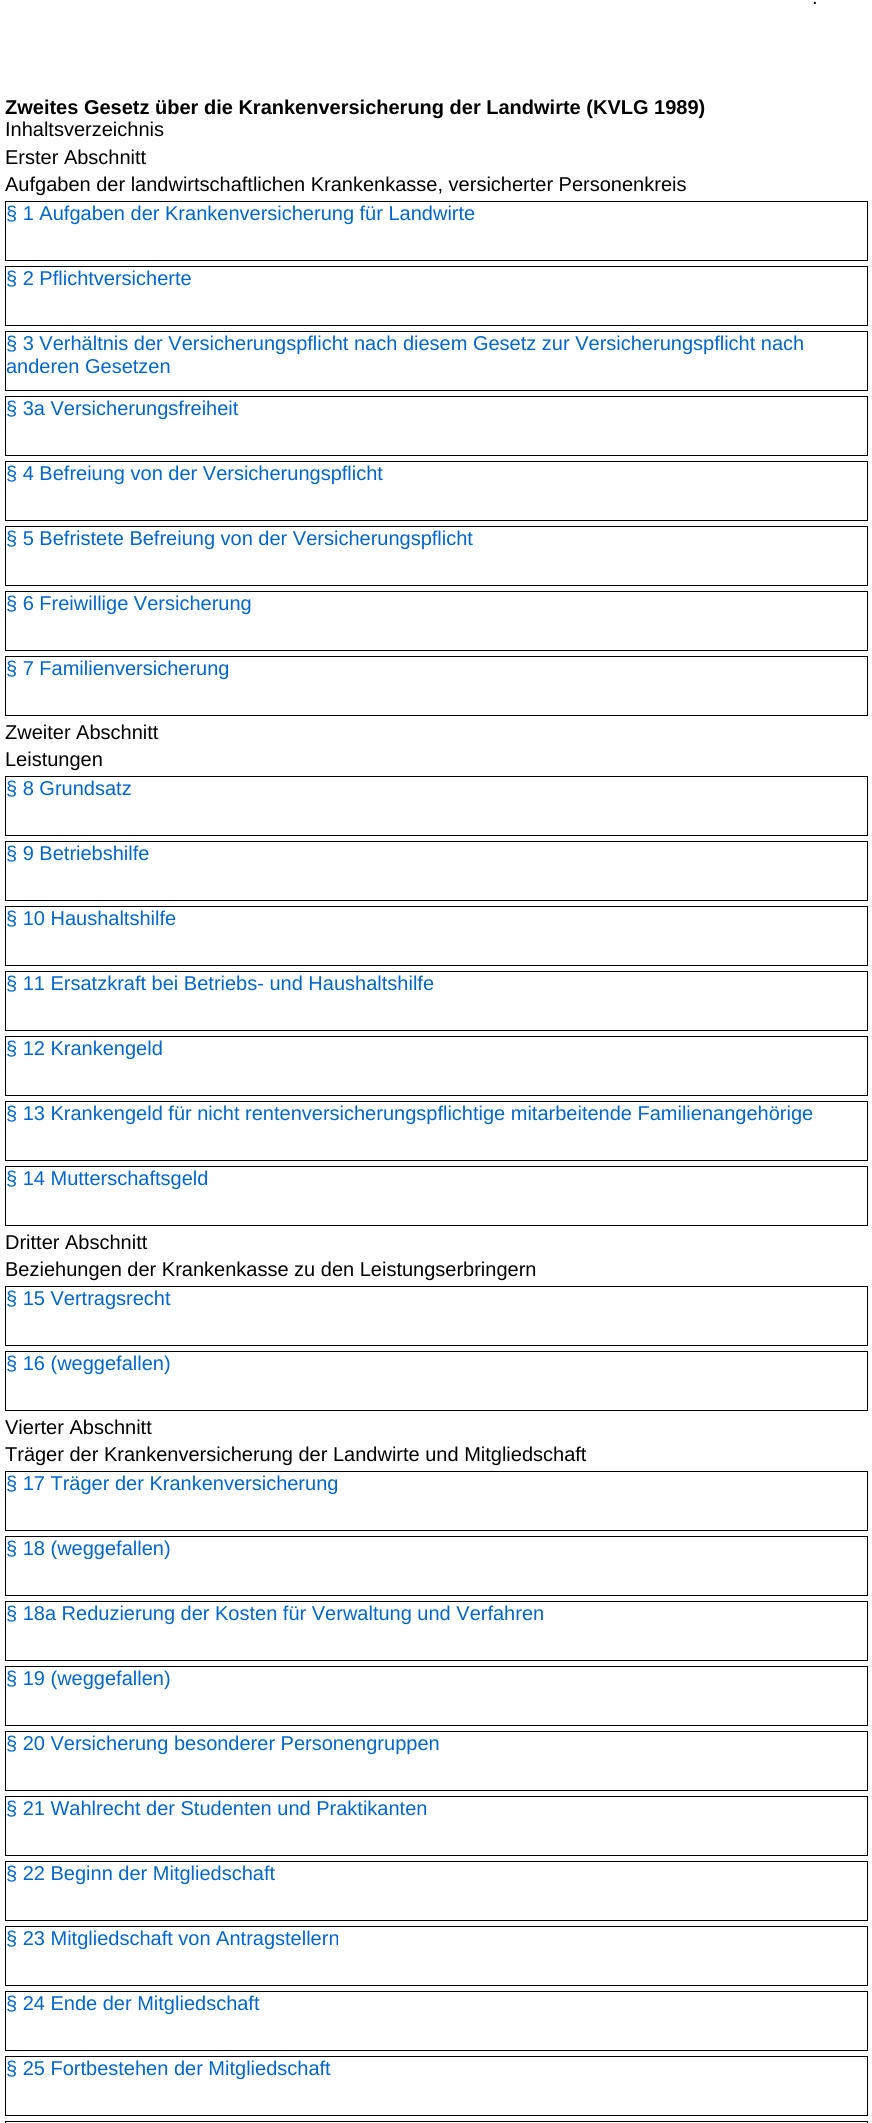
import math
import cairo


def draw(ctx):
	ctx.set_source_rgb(1, 1, 1)
	ctx.paint()
	ctx.select_font_face('Liberation Sans')
	ctx.set_font_size(20)
	ctx.set_source_rgb(0, 0, 0)
	ctx.move_to(812, 4)
	ctx.show_text('.')
	ctx.select_font_face('Liberation Sans', cairo.FONT_SLANT_NORMAL, cairo.FONT_WEIGHT_BOLD)
	ctx.move_to(5, 114)
	ctx.show_text('Zweites Gesetz über die Krankenversicherung der Landwirte (KVLG 1989)')
	ctx.select_font_face('Liberation Sans')
	for x, y, s in [
		(5, 136, 'Inhaltsverzeichnis'),
		(5, 164, 'Erster Abschnitt'),
		(5, 191, 'Aufgaben der landwirtschaftlichen Krankenkasse, versicherter Personenkreis'),
	]:
		ctx.move_to(x, y)
		ctx.show_text(s)
	ctx.rectangle(5.5, 201.5, 862, 59)
	ctx.set_line_width(1)
	ctx.stroke()
	ctx.set_source_rgb(0, 0.4, 0.8)
	ctx.move_to(6, 220)
	ctx.show_text('§ 1 Aufgaben der Krankenversicherung für Landwirte')
	ctx.rectangle(5.5, 266.5, 862, 59)
	ctx.set_source_rgb(0, 0, 0)
	ctx.stroke()
	ctx.set_source_rgb(0, 0.4, 0.8)
	ctx.move_to(6, 285)
	ctx.show_text('§ 2 Pflichtversicherte')
	ctx.rectangle(5.5, 331.5, 862, 59)
	ctx.set_source_rgb(0, 0, 0)
	ctx.stroke()
	ctx.set_source_rgb(0, 0.4, 0.8)
	ctx.move_to(6, 350)
	ctx.show_text('§ 3 Verhältnis der Versicherungspflicht nach diesem Gesetz zur Versicherungspflicht nach')
	ctx.move_to(6, 373)
	ctx.show_text('anderen Gesetzen')
	ctx.rectangle(5.5, 396.5, 862, 59)
	ctx.set_source_rgb(0, 0, 0)
	ctx.stroke()
	ctx.set_source_rgb(0, 0.4, 0.8)
	ctx.move_to(6, 415)
	ctx.show_text('§ 3a Versicherungsfreiheit')
	ctx.rectangle(5.5, 461.5, 862, 59)
	ctx.set_source_rgb(0, 0, 0)
	ctx.stroke()
	ctx.set_source_rgb(0, 0.4, 0.8)
	ctx.move_to(6, 480)
	ctx.show_text('§ 4 Befreiung von der Versicherungspflicht')
	ctx.rectangle(5.5, 526.5, 862, 59)
	ctx.set_source_rgb(0, 0, 0)
	ctx.stroke()
	ctx.set_source_rgb(0, 0.4, 0.8)
	ctx.move_to(6, 545)
	ctx.show_text('§ 5 Befristete Befreiung von der Versicherungspflicht')
	ctx.rectangle(5.5, 591.5, 862, 59)
	ctx.set_source_rgb(0, 0, 0)
	ctx.stroke()
	ctx.set_source_rgb(0, 0.4, 0.8)
	ctx.move_to(6, 610)
	ctx.show_text('§ 6 Freiwillige Versicherung')
	ctx.rectangle(5.5, 656.5, 862, 59)
	ctx.set_source_rgb(0, 0, 0)
	ctx.stroke()
	ctx.set_source_rgb(0, 0.4, 0.8)
	ctx.move_to(6, 675)
	ctx.show_text('§ 7 Familienversicherung')
	ctx.set_source_rgb(0, 0, 0)
	ctx.move_to(5, 739)
	ctx.show_text('Zweiter Abschnitt')
	ctx.move_to(5, 766)
	ctx.show_text('Leistungen')
	ctx.rectangle(5.5, 776.5, 862, 59)
	ctx.stroke()
	ctx.set_source_rgb(0, 0.4, 0.8)
	ctx.move_to(6, 795)
	ctx.show_text('§ 8 Grundsatz')
	ctx.rectangle(5.5, 841.5, 862, 59)
	ctx.set_source_rgb(0, 0, 0)
	ctx.stroke()
	ctx.set_source_rgb(0, 0.4, 0.8)
	ctx.move_to(6, 860)
	ctx.show_text('§ 9 Betriebshilfe')
	ctx.rectangle(5.5, 906.5, 862, 59)
	ctx.set_source_rgb(0, 0, 0)
	ctx.stroke()
	ctx.set_source_rgb(0, 0.4, 0.8)
	ctx.move_to(6, 925)
	ctx.show_text('§ 10 Haushaltshilfe')
	ctx.rectangle(5.5, 971.5, 862, 59)
	ctx.set_source_rgb(0, 0, 0)
	ctx.stroke()
	ctx.set_source_rgb(0, 0.4, 0.8)
	ctx.move_to(6, 990)
	ctx.show_text('§ 11 Ersatzkraft bei Betriebs- und Haushaltshilfe')
	ctx.rectangle(5.5, 1036.5, 862, 59)
	ctx.set_source_rgb(0, 0, 0)
	ctx.stroke()
	ctx.set_source_rgb(0, 0.4, 0.8)
	ctx.move_to(6, 1055)
	ctx.show_text('§ 12 Krankengeld')
	ctx.rectangle(5.5, 1101.5, 862, 59)
	ctx.set_source_rgb(0, 0, 0)
	ctx.stroke()
	ctx.set_source_rgb(0, 0.4, 0.8)
	ctx.move_to(6, 1120)
	ctx.show_text('§ 13 Krankengeld für nicht rentenversicherungspflichtige mitarbeitende Familienangehörige')
	ctx.rectangle(5.5, 1166.5, 862, 59)
	ctx.set_source_rgb(0, 0, 0)
	ctx.stroke()
	ctx.set_source_rgb(0, 0.4, 0.8)
	ctx.move_to(6, 1185)
	ctx.show_text('§ 14 Mutterschaftsgeld')
	ctx.set_source_rgb(0, 0, 0)
	ctx.move_to(5, 1249)
	ctx.show_text('Dritter Abschnitt')
	ctx.move_to(5, 1276)
	ctx.show_text('Beziehungen der Krankenkasse zu den Leistungserbringern')
	ctx.rectangle(5.5, 1286.5, 862, 59)
	ctx.stroke()
	ctx.set_source_rgb(0, 0.4, 0.8)
	ctx.move_to(6, 1305)
	ctx.show_text('§ 15 Vertragsrecht')
	ctx.rectangle(5.5, 1351.5, 862, 59)
	ctx.set_source_rgb(0, 0, 0)
	ctx.stroke()
	ctx.set_source_rgb(0, 0.4, 0.8)
	ctx.move_to(6, 1370)
	ctx.show_text('§ 16 (weggefallen)')
	ctx.set_source_rgb(0, 0, 0)
	ctx.move_to(5, 1434)
	ctx.show_text('Vierter Abschnitt')
	ctx.move_to(5, 1461)
	ctx.show_text('Träger der Krankenversicherung der Landwirte und Mitgliedschaft')
	ctx.rectangle(5.5, 1471.5, 862, 59)
	ctx.stroke()
	ctx.set_source_rgb(0, 0.4, 0.8)
	ctx.move_to(6, 1490)
	ctx.show_text('§ 17 Träger der Krankenversicherung')
	ctx.rectangle(5.5, 1536.5, 862, 59)
	ctx.set_source_rgb(0, 0, 0)
	ctx.stroke()
	ctx.set_source_rgb(0, 0.4, 0.8)
	ctx.move_to(6, 1555)
	ctx.show_text('§ 18 (weggefallen)')
	ctx.rectangle(5.5, 1601.5, 862, 59)
	ctx.set_source_rgb(0, 0, 0)
	ctx.stroke()
	ctx.set_source_rgb(0, 0.4, 0.8)
	ctx.move_to(6, 1620)
	ctx.show_text('§ 18a Reduzierung der Kosten für Verwaltung und Verfahren')
	ctx.rectangle(5.5, 1666.5, 862, 59)
	ctx.set_source_rgb(0, 0, 0)
	ctx.stroke()
	ctx.set_source_rgb(0, 0.4, 0.8)
	ctx.move_to(6, 1685)
	ctx.show_text('§ 19 (weggefallen)')
	ctx.rectangle(5.5, 1731.5, 862, 59)
	ctx.set_source_rgb(0, 0, 0)
	ctx.stroke()
	ctx.set_source_rgb(0, 0.4, 0.8)
	ctx.move_to(6, 1750)
	ctx.show_text('§ 20 Versicherung besonderer Personengruppen')
	ctx.rectangle(5.5, 1796.5, 862, 59)
	ctx.set_source_rgb(0, 0, 0)
	ctx.stroke()
	ctx.set_source_rgb(0, 0.4, 0.8)
	ctx.move_to(6, 1815)
	ctx.show_text('§ 21 Wahlrecht der Studenten und Praktikanten')
	ctx.rectangle(5.5, 1861.5, 862, 59)
	ctx.set_source_rgb(0, 0, 0)
	ctx.stroke()
	ctx.set_source_rgb(0, 0.4, 0.8)
	ctx.move_to(6, 1880)
	ctx.show_text('§ 22 Beginn der Mitgliedschaft')
	ctx.rectangle(5.5, 1926.5, 862, 59)
	ctx.set_source_rgb(0, 0, 0)
	ctx.stroke()
	ctx.set_source_rgb(0, 0.4, 0.8)
	ctx.move_to(6, 1945)
	ctx.show_text('§ 23 Mitgliedschaft von Antragstellern')
	ctx.rectangle(5.5, 1991.5, 862, 59)
	ctx.set_source_rgb(0, 0, 0)
	ctx.stroke()
	ctx.set_source_rgb(0, 0.4, 0.8)
	ctx.move_to(6, 2010)
	ctx.show_text('§ 24 Ende der Mitgliedschaft')
	ctx.rectangle(5.5, 2056.5, 862, 59)
	ctx.set_source_rgb(0, 0, 0)
	ctx.stroke()
	ctx.set_source_rgb(0, 0.4, 0.8)
	ctx.move_to(6, 2075)
	ctx.show_text('§ 25 Fortbestehen der Mitgliedschaft')
	ctx.rectangle(5.5, 2121.5, 862, 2)
	ctx.set_source_rgb(0, 0, 0)
	ctx.stroke()


surface = cairo.ImageSurface(cairo.FORMAT_RGB24, 872, 2123)
ctx = cairo.Context(surface)
options = cairo.FontOptions()
options.set_hint_metrics(cairo.HINT_METRICS_OFF)
options.set_hint_style(cairo.HINT_STYLE_NONE)
ctx.set_font_options(options)
ctx.set_miter_limit(4)
draw(ctx)
surface.write_to_png('image.png')
